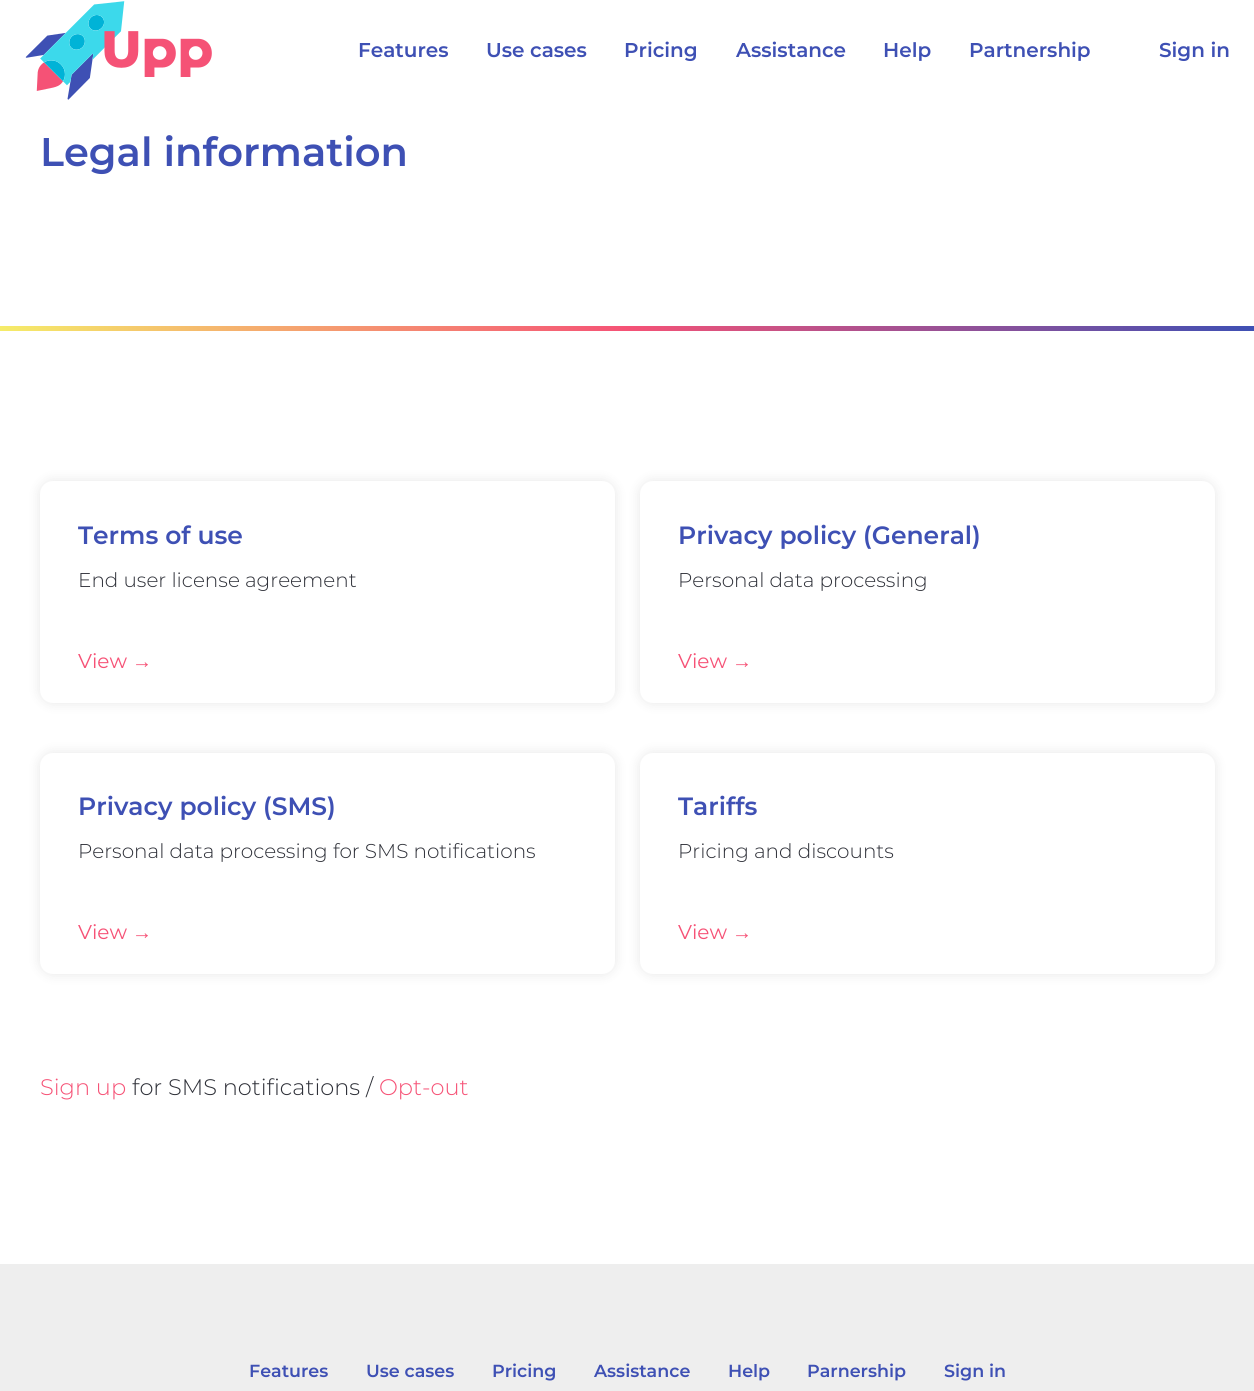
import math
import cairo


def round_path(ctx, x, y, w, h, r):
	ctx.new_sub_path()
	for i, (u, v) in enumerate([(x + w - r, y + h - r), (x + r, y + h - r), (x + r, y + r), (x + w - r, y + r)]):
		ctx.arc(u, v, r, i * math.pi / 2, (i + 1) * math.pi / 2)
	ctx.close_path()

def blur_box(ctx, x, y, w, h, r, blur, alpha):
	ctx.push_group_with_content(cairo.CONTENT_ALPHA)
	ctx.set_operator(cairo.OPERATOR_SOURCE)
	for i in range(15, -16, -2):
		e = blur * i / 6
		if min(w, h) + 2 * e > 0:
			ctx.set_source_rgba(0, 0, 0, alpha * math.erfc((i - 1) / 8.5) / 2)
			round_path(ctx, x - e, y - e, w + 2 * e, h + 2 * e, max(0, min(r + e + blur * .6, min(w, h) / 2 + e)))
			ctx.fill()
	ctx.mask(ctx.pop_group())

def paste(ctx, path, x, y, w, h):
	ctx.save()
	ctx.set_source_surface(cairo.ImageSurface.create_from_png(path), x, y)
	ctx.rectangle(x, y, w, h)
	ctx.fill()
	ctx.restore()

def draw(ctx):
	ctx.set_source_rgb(1, 1, 1)
	ctx.paint()
	paste(ctx, 'media/1.png', 25, 1, 187, 99)
	ctx.select_font_face('Montserrat SemiBold')
	ctx.set_font_size(20)
	ctx.set_source_rgb(0.243, 0.314, 0.706)
	for x, y, s in [
		(358, 57, 'Features'),
		(486, 57, 'Use cases'),
		(624, 57, 'Pricing'),
		(736, 57, 'Assistance'),
		(883, 57, 'Help'),
		(969, 57, 'Partnership'),
		(1159, 57, 'Sign in'),
	]:
		ctx.move_to(x, y)
		ctx.show_text(s)
	ctx.set_font_size(40)
	ctx.move_to(40, 166)
	ctx.show_text('Legal information')
	gradient = cairo.LinearGradient(0, 329, 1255, 329)
	gradient.add_color_stop_rgba(0, 0.961, 0.925, 0.412, 1)
	gradient.add_color_stop_rgba(0.5, 0.961, 0.322, 0.463, 1)
	gradient.add_color_stop_rgba(1, 0.243, 0.314, 0.706, 1)
	ctx.set_source(gradient)
	ctx.rectangle(0, 326, 1254, 5)
	ctx.fill()
	ctx.set_source_rgb(0, 0, 0)
	blur_box(ctx, 40, 481, 575, 222, 13, 6, 0.1)
	ctx.set_source_rgb(1, 1, 1)
	round_path(ctx, 40, 481, 575, 222, 13)
	ctx.fill()
	ctx.set_font_size(25)
	ctx.set_source_rgb(0.243, 0.314, 0.706)
	ctx.move_to(78, 544)
	ctx.show_text('Terms of use')
	ctx.select_font_face('Montserrat Light')
	ctx.set_font_size(20)
	ctx.set_source_rgb(0.18, 0.188, 0.22)
	ctx.move_to(78, 587)
	ctx.show_text('End user license agreement')
	ctx.select_font_face('Montserrat')
	ctx.set_source_rgb(0.961, 0.322, 0.463)
	ctx.move_to(78, 668)
	ctx.show_text('View')
	ctx.select_font_face('Liberation Sans')
	ctx.move_to(132, 668)
	ctx.show_text('→')
	ctx.set_source_rgb(0, 0, 0)
	blur_box(ctx, 640, 481, 575, 222, 13, 6, 0.1)
	ctx.set_source_rgb(1, 1, 1)
	round_path(ctx, 640, 481, 575, 222, 13)
	ctx.fill()
	ctx.select_font_face('Montserrat SemiBold')
	ctx.set_font_size(25)
	ctx.set_source_rgb(0.243, 0.314, 0.706)
	ctx.move_to(678, 544)
	ctx.show_text('Privacy policy (General)')
	ctx.select_font_face('Montserrat Light')
	ctx.set_font_size(20)
	ctx.set_source_rgb(0.18, 0.188, 0.22)
	ctx.move_to(678, 587)
	ctx.show_text('Personal data processing')
	ctx.select_font_face('Montserrat')
	ctx.set_source_rgb(0.961, 0.322, 0.463)
	ctx.move_to(678, 668)
	ctx.show_text('View')
	ctx.select_font_face('Liberation Sans')
	ctx.move_to(732, 668)
	ctx.show_text('→')
	ctx.set_source_rgb(0, 0, 0)
	blur_box(ctx, 40, 753, 575, 221, 13, 6, 0.1)
	ctx.set_source_rgb(1, 1, 1)
	round_path(ctx, 40, 753, 575, 221, 13)
	ctx.fill()
	ctx.select_font_face('Montserrat SemiBold')
	ctx.set_font_size(25)
	ctx.set_source_rgb(0.243, 0.314, 0.706)
	ctx.move_to(78, 815)
	ctx.show_text('Privacy policy (SMS)')
	ctx.select_font_face('Montserrat Light')
	ctx.set_font_size(20)
	ctx.set_source_rgb(0.18, 0.188, 0.22)
	ctx.move_to(78, 858)
	ctx.show_text('Personal data processing for SMS notifications')
	ctx.select_font_face('Montserrat')
	ctx.set_source_rgb(0.961, 0.322, 0.463)
	ctx.move_to(78, 939)
	ctx.show_text('View')
	ctx.select_font_face('Liberation Sans')
	ctx.move_to(132, 939)
	ctx.show_text('→')
	ctx.set_source_rgb(0, 0, 0)
	blur_box(ctx, 640, 753, 575, 221, 13, 6, 0.1)
	ctx.set_source_rgb(1, 1, 1)
	round_path(ctx, 640, 753, 575, 221, 13)
	ctx.fill()
	ctx.select_font_face('Montserrat SemiBold')
	ctx.set_font_size(25)
	ctx.set_source_rgb(0.243, 0.314, 0.706)
	ctx.move_to(678, 815)
	ctx.show_text('Tariffs')
	ctx.select_font_face('Montserrat Light')
	ctx.set_font_size(20)
	ctx.set_source_rgb(0.18, 0.188, 0.22)
	ctx.move_to(678, 858)
	ctx.show_text('Pricing and discounts')
	ctx.select_font_face('Montserrat')
	ctx.set_source_rgb(0.961, 0.322, 0.463)
	ctx.move_to(678, 939)
	ctx.show_text('View')
	ctx.select_font_face('Liberation Sans')
	ctx.move_to(732, 939)
	ctx.show_text('→')
	ctx.select_font_face('Montserrat Light')
	ctx.set_font_size(22.5)
	ctx.move_to(40, 1095)
	ctx.show_text('Sign up')
	ctx.set_source_rgb(0.18, 0.188, 0.22)
	ctx.move_to(132, 1095)
	ctx.show_text('for SMS notifications /')
	ctx.set_source_rgb(0.961, 0.322, 0.463)
	ctx.move_to(379, 1095)
	ctx.show_text('Opt-out')
	ctx.set_source_rgb(0.933, 0.933, 0.933)
	ctx.rectangle(0, 1264, 1254, 127)
	ctx.fill()
	ctx.select_font_face('Montserrat SemiBold')
	ctx.set_font_size(17.5)
	ctx.set_source_rgb(0.243, 0.314, 0.706)
	for x, y, s in [
		(249, 1377, 'Features'),
		(366, 1377, 'Use cases'),
		(492, 1377, 'Pricing'),
		(594, 1377, 'Assistance'),
		(728, 1377, 'Help'),
		(807, 1377, 'Parnership'),
		(944, 1377, 'Sign in'),
	]:
		ctx.move_to(x, y)
		ctx.show_text(s)


surface = cairo.ImageSurface(cairo.FORMAT_RGB24, 1254, 1391)
ctx = cairo.Context(surface)
options = cairo.FontOptions()
options.set_hint_metrics(cairo.HINT_METRICS_OFF)
options.set_hint_style(cairo.HINT_STYLE_NONE)
ctx.set_font_options(options)
ctx.set_miter_limit(4)
draw(ctx)
surface.write_to_png('image.png')
